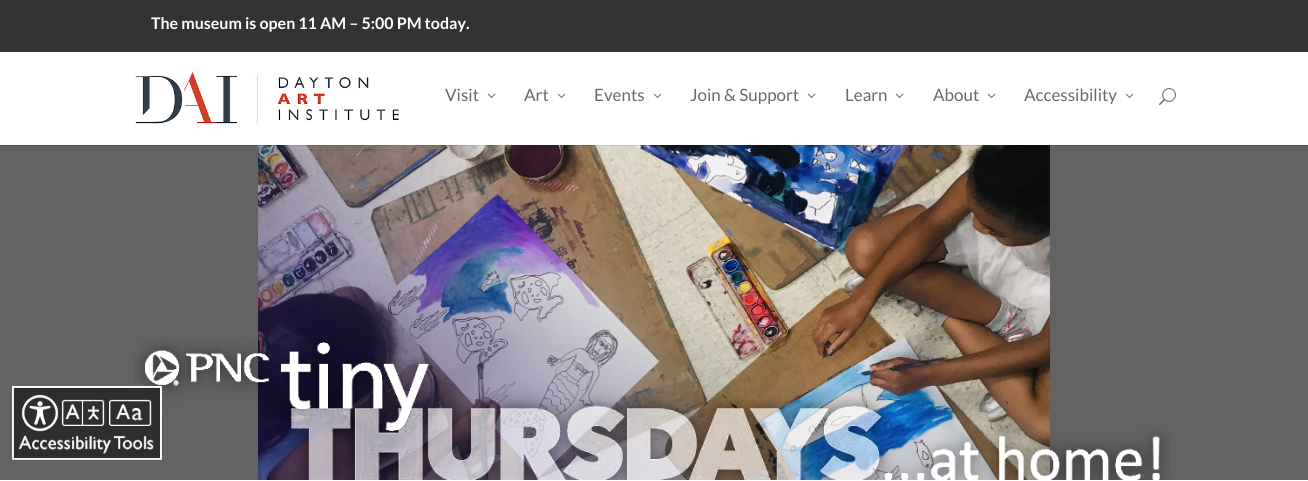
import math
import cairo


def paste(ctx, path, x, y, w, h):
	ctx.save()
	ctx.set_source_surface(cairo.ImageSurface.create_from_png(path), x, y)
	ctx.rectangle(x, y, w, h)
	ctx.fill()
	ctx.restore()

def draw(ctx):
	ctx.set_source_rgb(1, 1, 1)
	ctx.paint()
	ctx.set_source_rgb(0.2, 0.2, 0.2)
	ctx.rectangle(0, 0, 1308, 52)
	ctx.fill()
	ctx.select_font_face('Lato', cairo.FONT_SLANT_NORMAL, cairo.FONT_WEIGHT_BOLD)
	ctx.set_font_size(16)
	ctx.set_source_rgb(1, 1, 1)
	ctx.move_to(151, 29)
	ctx.show_text('The museum is open 11 AM – 5:00 PM today.')
	ctx.set_source_rgb(0.388, 0.388, 0.388)
	ctx.rectangle(0, 145, 1308, 335)
	ctx.fill()
	paste(ctx, 'media/4.png', 258, 145, 792, 335)
	ctx.set_source_rgba(0, 0, 0, 0.1)
	ctx.rectangle(0, 145, 1308, 1)
	ctx.fill()
	paste(ctx, 'media/1.png', 135, 72, 264, 53)
	ctx.select_font_face('Lato')
	ctx.set_font_size(17)
	ctx.set_source_rgb(0.416, 0.416, 0.416)
	ctx.move_to(445, 101)
	ctx.show_text('Visit')
	paste(ctx, 'media/2.png', 487, 93, 9, 5)
	ctx.move_to(524, 101)
	ctx.show_text('Art')
	paste(ctx, 'media/2.png', 557, 93, 9, 5)
	ctx.move_to(594, 101)
	ctx.show_text('Events')
	paste(ctx, 'media/2.png', 653, 93, 9, 5)
	ctx.move_to(690, 101)
	ctx.show_text('Join & Support')
	paste(ctx, 'media/2.png', 807, 93, 9, 5)
	ctx.move_to(845, 101)
	ctx.show_text('Learn')
	paste(ctx, 'media/2.png', 895, 93, 9, 5)
	ctx.move_to(933, 101)
	ctx.show_text('About')
	paste(ctx, 'media/2.png', 987, 93, 9, 5)
	ctx.move_to(1024, 101)
	ctx.show_text('Accessibility')
	paste(ctx, 'media/2.png', 1125, 93, 9, 5)
	paste(ctx, 'media/3.png', 1159, 88, 17, 18)
	paste(ctx, 'media/5.png', 134, 338, 1037, 142)
	paste(ctx, 'media/6.png', 12, 386, 150, 74)


surface = cairo.ImageSurface(cairo.FORMAT_RGB24, 1308, 481)
ctx = cairo.Context(surface)
options = cairo.FontOptions()
options.set_hint_metrics(cairo.HINT_METRICS_OFF)
options.set_hint_style(cairo.HINT_STYLE_NONE)
ctx.set_font_options(options)
ctx.set_miter_limit(4)
draw(ctx)
surface.write_to_png('image.png')
